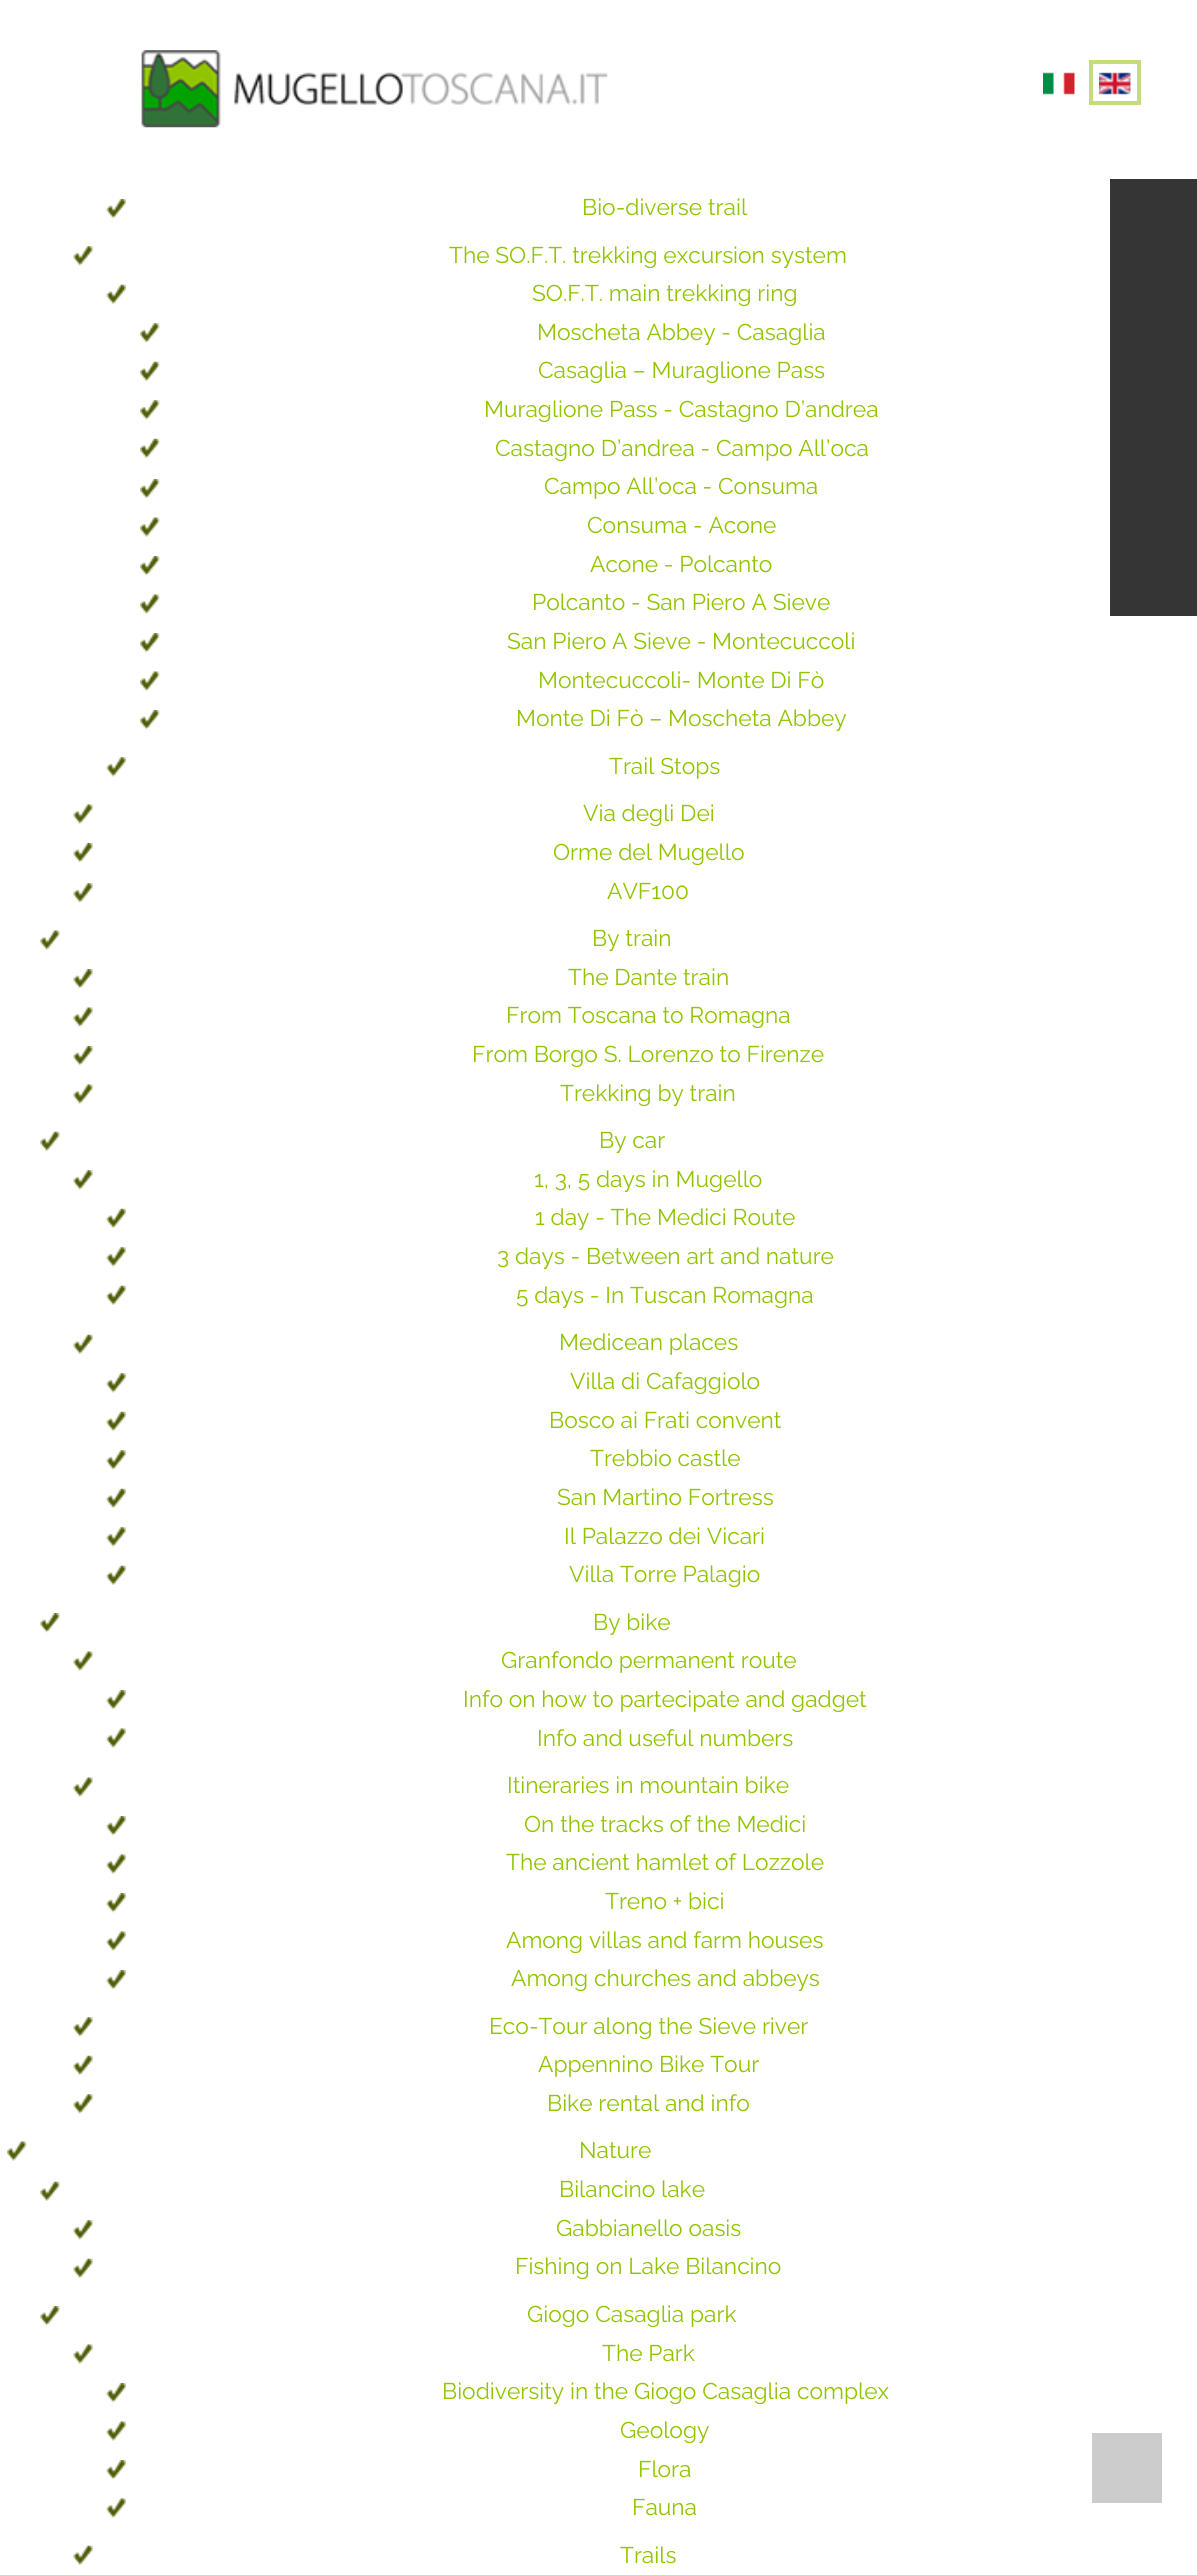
import math
import cairo


def paste(ctx, path, x, y, w, h):
	ctx.save()
	ctx.set_source_surface(cairo.ImageSurface.create_from_png(path), x, y)
	ctx.rectangle(x, y, w, h)
	ctx.fill()
	ctx.restore()

def draw(ctx):
	ctx.set_source_rgb(1, 1, 1)
	ctx.paint()
	paste(ctx, 'media/1.png', 141, 50, 467, 78)
	paste(ctx, 'media/2.png', 1043, 72, 32, 23)
	ctx.rectangle(1091, 62, 48, 41)
	ctx.set_source_rgb(0.769, 0.867, 0.482)
	ctx.set_line_width(4)
	ctx.stroke()
	paste(ctx, 'media/3.png', 1099, 72, 32, 23)
	paste(ctx, 'media/4.png', 106, 199, 20, 20)
	ctx.select_font_face('Raleway')
	ctx.set_font_size(22.75)
	ctx.set_source_rgb(0.569, 0.769, 0)
	ctx.move_to(582, 215)
	ctx.show_text('Bio-diverse trail')
	paste(ctx, 'media/5.png', 73, 246, 20, 20)
	ctx.move_to(449, 263)
	ctx.show_text('The SO.F.T. trekking excursion system')
	paste(ctx, 'media/6.png', 106, 284, 20, 20)
	ctx.move_to(532, 301)
	ctx.show_text('SO.F.T. main trekking ring')
	paste(ctx, 'media/7.png', 140, 323, 20, 20)
	ctx.move_to(537, 340)
	ctx.show_text('Moscheta Abbey - Casaglia')
	paste(ctx, 'media/8.png', 140, 361, 20, 20)
	ctx.move_to(538, 378)
	ctx.show_text('Casaglia – Muraglione Pass')
	paste(ctx, 'media/7.png', 140, 400, 20, 20)
	ctx.move_to(484, 417)
	ctx.show_text('Muraglione Pass - Castagno D’andrea')
	paste(ctx, 'media/8.png', 140, 438, 20, 20)
	ctx.move_to(495, 456)
	ctx.show_text('Castagno D’andrea - Campo All’oca')
	paste(ctx, 'media/9.png', 140, 479, 20, 20)
	ctx.move_to(544, 494)
	ctx.show_text('Campo All’oca - Consuma')
	paste(ctx, 'media/10.png', 140, 517, 20, 20)
	ctx.move_to(587, 533)
	ctx.show_text('Consuma - Acone')
	paste(ctx, 'media/9.png', 140, 556, 20, 20)
	ctx.move_to(590, 572)
	ctx.show_text('Acone - Polcanto')
	paste(ctx, 'media/10.png', 140, 594, 20, 20)
	ctx.move_to(532, 610)
	ctx.show_text('Polcanto - San Piero A Sieve')
	paste(ctx, 'media/9.png', 140, 633, 20, 20)
	ctx.move_to(507, 649)
	ctx.show_text('San Piero A Sieve - Montecuccoli')
	paste(ctx, 'media/10.png', 140, 671, 20, 20)
	ctx.move_to(538, 688)
	ctx.show_text('Montecuccoli- Monte Di Fò')
	paste(ctx, 'media/9.png', 140, 710, 20, 20)
	ctx.move_to(516, 726)
	ctx.show_text('Monte Di Fò – Moscheta Abbey')
	paste(ctx, 'media/11.png', 106, 757, 20, 20)
	ctx.move_to(609, 774)
	ctx.show_text('Trail Stops')
	paste(ctx, 'media/12.png', 73, 804, 20, 20)
	ctx.move_to(583, 821)
	ctx.show_text('Via degli Dei')
	paste(ctx, 'media/13.png', 73, 843, 20, 20)
	ctx.move_to(553, 860)
	ctx.show_text('Orme del Mugello')
	paste(ctx, 'media/5.png', 73, 883, 20, 20)
	ctx.move_to(607, 899)
	ctx.show_text('AVF100')
	paste(ctx, 'media/14.png', 40, 930, 20, 20)
	ctx.move_to(592, 946)
	ctx.show_text('By train')
	paste(ctx, 'media/13.png', 73, 969, 20, 20)
	ctx.move_to(568, 985)
	ctx.show_text('The Dante train')
	paste(ctx, 'media/12.png', 73, 1007, 20, 20)
	ctx.move_to(506, 1023)
	ctx.show_text('From Toscana to Romagna')
	paste(ctx, 'media/13.png', 73, 1046, 20, 20)
	ctx.move_to(472, 1062)
	ctx.show_text('From Borgo S. Lorenzo to Firenze')
	paste(ctx, 'media/12.png', 73, 1084, 20, 20)
	ctx.move_to(560, 1101)
	ctx.show_text('Trekking by train')
	paste(ctx, 'media/15.png', 40, 1131, 20, 20)
	ctx.move_to(599, 1148)
	ctx.show_text('By car')
	paste(ctx, 'media/5.png', 73, 1170, 20, 20)
	ctx.move_to(534, 1187)
	ctx.show_text('1, 3, 5 days in Mugello')
	paste(ctx, 'media/6.png', 106, 1208, 20, 20)
	ctx.move_to(535, 1225)
	ctx.show_text('1 day - The Medici Route')
	paste(ctx, 'media/11.png', 106, 1247, 20, 20)
	ctx.move_to(497, 1264)
	ctx.show_text('3 days - Between art and nature')
	paste(ctx, 'media/6.png', 106, 1285, 20, 20)
	ctx.move_to(516, 1303)
	ctx.show_text('5 days - In Tuscan Romagna')
	paste(ctx, 'media/16.png', 73, 1334, 20, 20)
	ctx.move_to(559, 1350)
	ctx.show_text('Medicean places')
	paste(ctx, 'media/11.png', 106, 1373, 20, 20)
	ctx.move_to(570, 1389)
	ctx.show_text('Villa di Cafaggiolo')
	paste(ctx, 'media/6.png', 106, 1411, 20, 20)
	ctx.move_to(549, 1428)
	ctx.show_text('Bosco ai Frati convent')
	paste(ctx, 'media/11.png', 106, 1450, 20, 20)
	ctx.move_to(590, 1466)
	ctx.show_text('Trebbio castle')
	paste(ctx, 'media/6.png', 106, 1488, 20, 20)
	ctx.move_to(557, 1505)
	ctx.show_text('San Martino Fortress')
	paste(ctx, 'media/11.png', 106, 1527, 20, 20)
	ctx.move_to(564, 1544)
	ctx.show_text('Il Palazzo dei Vicari')
	paste(ctx, 'media/6.png', 106, 1565, 20, 20)
	ctx.move_to(569, 1582)
	ctx.show_text('Villa Torre Palagio')
	paste(ctx, 'media/17.png', 40, 1613, 20, 20)
	ctx.move_to(593, 1630)
	ctx.show_text('By bike')
	paste(ctx, 'media/12.png', 73, 1651, 20, 20)
	ctx.move_to(501, 1668)
	ctx.show_text('Granfondo permanent route')
	paste(ctx, 'media/4.png', 106, 1690, 20, 20)
	ctx.move_to(463, 1707)
	ctx.show_text('Info on how to partecipate and gadget')
	paste(ctx, 'media/18.png', 106, 1728, 20, 20)
	ctx.move_to(537, 1746)
	ctx.show_text('Info and useful numbers')
	paste(ctx, 'media/12.png', 73, 1777, 20, 20)
	ctx.move_to(507, 1793)
	ctx.show_text('Itineraries in mountain bike')
	paste(ctx, 'media/4.png', 106, 1816, 20, 20)
	ctx.move_to(524, 1832)
	ctx.show_text('On the tracks of the Medici')
	paste(ctx, 'media/18.png', 106, 1854, 20, 20)
	ctx.move_to(506, 1870)
	ctx.show_text('The ancient hamlet of Lozzole')
	paste(ctx, 'media/4.png', 106, 1893, 20, 20)
	ctx.move_to(605, 1909)
	ctx.show_text('Treno + bici')
	paste(ctx, 'media/18.png', 106, 1931, 20, 20)
	ctx.move_to(506, 1948)
	ctx.show_text('Among villas and farm houses')
	paste(ctx, 'media/4.png', 106, 1970, 20, 20)
	ctx.move_to(511, 1986)
	ctx.show_text('Among churches and abbeys')
	paste(ctx, 'media/5.png', 73, 2017, 20, 20)
	ctx.move_to(489, 2034)
	ctx.show_text('Eco-Tour along the Sieve river')
	paste(ctx, 'media/16.png', 73, 2055, 20, 20)
	ctx.move_to(538, 2072)
	ctx.show_text('Appennino Bike Tour')
	paste(ctx, 'media/5.png', 73, 2094, 20, 20)
	ctx.move_to(547, 2111)
	ctx.show_text('Bike rental and info')
	paste(ctx, 'media/10.png', 7, 2141, 20, 20)
	ctx.move_to(579, 2158)
	ctx.show_text('Nature')
	paste(ctx, 'media/15.png', 40, 2181, 20, 20)
	ctx.move_to(559, 2197)
	ctx.show_text('Bilancino lake')
	paste(ctx, 'media/5.png', 73, 2220, 20, 20)
	ctx.move_to(556, 2236)
	ctx.show_text('Gabbianello oasis')
	paste(ctx, 'media/16.png', 73, 2258, 20, 20)
	ctx.move_to(515, 2274)
	ctx.show_text('Fishing on Lake Bilancino')
	paste(ctx, 'media/17.png', 40, 2306, 20, 20)
	ctx.move_to(527, 2322)
	ctx.show_text('Giogo Casaglia park')
	paste(ctx, 'media/12.png', 73, 2344, 20, 20)
	ctx.move_to(602, 2361)
	ctx.show_text('The Park')
	paste(ctx, 'media/4.png', 106, 2383, 20, 20)
	ctx.move_to(442, 2399)
	ctx.show_text('Biodiversity in the Giogo Casaglia complex')
	paste(ctx, 'media/18.png', 106, 2421, 20, 20)
	ctx.move_to(620, 2438)
	ctx.show_text('Geology')
	paste(ctx, 'media/4.png', 106, 2460, 20, 20)
	ctx.move_to(638, 2477)
	ctx.show_text('Flora')
	paste(ctx, 'media/18.png', 106, 2498, 20, 20)
	ctx.move_to(632, 2515)
	ctx.show_text('Fauna')
	paste(ctx, 'media/16.png', 73, 2545, 20, 20)
	ctx.move_to(620, 2563)
	ctx.show_text('Trails')
	ctx.set_source_rgb(0.208, 0.208, 0.208)
	ctx.rectangle(1110, 179, 87, 437)
	ctx.fill()
	ctx.set_source_rgb(0.8, 0.8, 0.8)
	ctx.rectangle(1092, 2433, 70, 70)
	ctx.fill()


surface = cairo.ImageSurface(cairo.FORMAT_RGB24, 1197, 2575)
ctx = cairo.Context(surface)
options = cairo.FontOptions()
options.set_hint_metrics(cairo.HINT_METRICS_OFF)
options.set_hint_style(cairo.HINT_STYLE_NONE)
ctx.set_font_options(options)
ctx.set_miter_limit(4)
draw(ctx)
surface.write_to_png('image.png')
